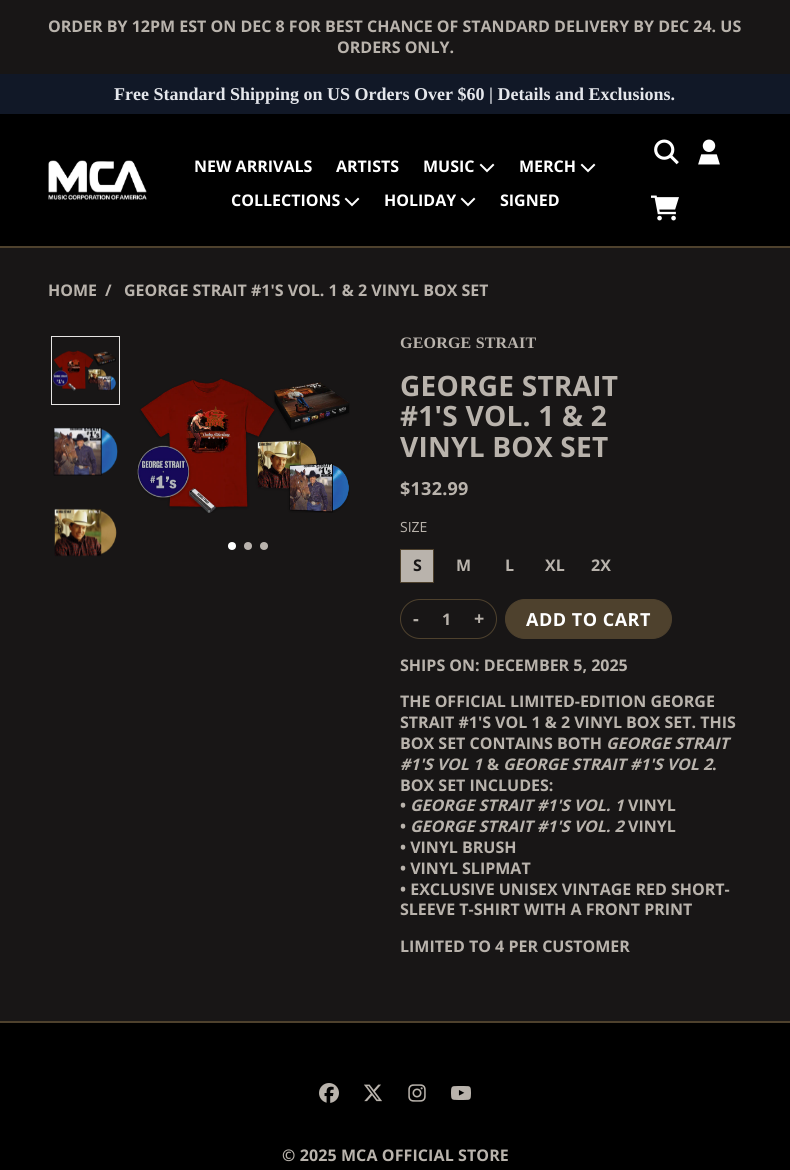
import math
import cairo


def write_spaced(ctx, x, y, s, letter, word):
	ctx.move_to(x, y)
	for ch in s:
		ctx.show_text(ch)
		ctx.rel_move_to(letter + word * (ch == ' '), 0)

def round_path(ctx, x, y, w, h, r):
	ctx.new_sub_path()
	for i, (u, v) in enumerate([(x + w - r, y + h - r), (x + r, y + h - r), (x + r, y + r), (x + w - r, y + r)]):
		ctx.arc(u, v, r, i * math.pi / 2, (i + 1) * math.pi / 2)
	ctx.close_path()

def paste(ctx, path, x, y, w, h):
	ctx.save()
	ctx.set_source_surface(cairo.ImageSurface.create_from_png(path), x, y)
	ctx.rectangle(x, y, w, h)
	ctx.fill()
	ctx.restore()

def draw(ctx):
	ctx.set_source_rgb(0.094, 0.086, 0.086)
	ctx.paint()
	ctx.select_font_face('Open Sans', cairo.FONT_SLANT_NORMAL, cairo.FONT_WEIGHT_BOLD)
	ctx.set_font_size(16)
	ctx.set_source_rgb(0.725, 0.702, 0.675)
	ctx.move_to(48, 32)
	ctx.show_text('ORDER BY 12PM EST ON DEC 8 FOR BEST CHANCE OF STANDARD DELIVERY BY DEC 24. US')
	ctx.move_to(337, 53)
	ctx.show_text('ORDERS ONLY.')
	ctx.set_source_rgb(0.067, 0.094, 0.153)
	ctx.rectangle(0, 74, 790, 40)
	ctx.fill()
	ctx.select_font_face('Liberation Serif', cairo.FONT_SLANT_NORMAL, cairo.FONT_WEIGHT_BOLD)
	ctx.set_font_size(18)
	ctx.set_source_rgb(0.898, 0.906, 0.922)
	ctx.move_to(114, 100)
	ctx.show_text('Free Standard Shipping on US Orders Over $60 | Details and Exclusions.')
	ctx.set_source_rgb(0, 0, 0)
	ctx.rectangle(0, 114, 790, 132)
	ctx.fill()
	ctx.set_source_rgb(0.306, 0.255, 0.176)
	ctx.rectangle(0, 246, 790, 2)
	ctx.fill()
	paste(ctx, 'media/1.png', 48, 160, 99, 40)
	ctx.select_font_face('Open Sans', cairo.FONT_SLANT_NORMAL, cairo.FONT_WEIGHT_BOLD)
	ctx.set_font_size(16)
	ctx.set_source_rgb(1, 1, 1)
	for x, y, s in [
		(194, 172, 'NEW ARRIVALS'),
		(336, 172, 'ARTISTS'),
		(423, 172, 'MUSIC'),
	]:
		ctx.move_to(x, y)
		ctx.show_text(s)
	paste(ctx, 'media/2.png', 479, 163, 16, 10)
	ctx.move_to(519, 172)
	ctx.show_text('MERCH')
	paste(ctx, 'media/2.png', 580, 163, 16, 10)
	ctx.move_to(231, 206)
	ctx.show_text('COLLECTIONS')
	paste(ctx, 'media/2.png', 344, 197, 16, 10)
	ctx.move_to(384, 206)
	ctx.show_text('HOLIDAY')
	paste(ctx, 'media/2.png', 460, 197, 16, 10)
	ctx.move_to(500, 206)
	ctx.show_text('SIGNED')
	paste(ctx, 'media/3.png', 654, 139, 25, 26)
	paste(ctx, 'media/4.png', 698, 139, 22, 26)
	paste(ctx, 'media/5.png', 651, 195, 28, 26)
	ctx.set_source_rgb(0.725, 0.702, 0.675)
	for x, y, s in [
		(48, 296, 'HOME'),
		(105, 296, '/'),
		(124, 296, 'GEORGE STRAIT #1\'S VOL. 1 & 2 VINYL BOX SET'),
	]:
		ctx.move_to(x, y)
		ctx.show_text(s)
	ctx.rectangle(51.5, 336.5, 68, 68)
	ctx.set_source_rgb(0.906, 0.898, 0.894)
	ctx.set_line_width(1)
	ctx.stroke()
	paste(ctx, 'media/6.png', 52, 350, 64, 41)
	paste(ctx, 'media/7.png', 53, 427, 65, 49)
	paste(ctx, 'media/8.png', 54, 508, 63, 49)
	paste(ctx, 'media/9.png', 137, 378, 213, 135)
	ctx.set_source_rgb(1, 1, 1)
	ctx.arc(232, 546, 4, 0, 2 * math.pi)
	ctx.fill()
	ctx.set_source_rgb(0.725, 0.702, 0.678)
	ctx.arc(248, 546, 4, 0, 2 * math.pi)
	ctx.fill()
	ctx.arc(264, 546, 4, 0, 2 * math.pi)
	ctx.fill()
	ctx.select_font_face('Liberation Serif', cairo.FONT_SLANT_NORMAL, cairo.FONT_WEIGHT_BOLD)
	ctx.set_source_rgb(0.725, 0.702, 0.675)
	write_spaced(ctx, 400, 348, 'GEORGE STRAIT', 0.2, 0)
	ctx.select_font_face('Open Sans', cairo.FONT_SLANT_NORMAL, cairo.FONT_WEIGHT_BOLD)
	ctx.set_font_size(28)
	for x, y, s in [
		(400, 396, 'GEORGE STRAIT'),
		(400, 426, '#1\'S VOL. 1 & 2'),
		(400, 457, 'VINYL BOX SET'),
	]:
		write_spaced(ctx, x, y, s, 0.25, 0)
	ctx.set_font_size(18)
	write_spaced(ctx, 400, 495, '$132.99', 0.25, 0)
	ctx.select_font_face('Open Sans')
	ctx.set_font_size(14)
	ctx.move_to(400, 532)
	ctx.show_text('SIZE')
	ctx.rectangle(400.5, 549.5, 33, 33)
	ctx.fill_preserve()
	ctx.set_source_rgb(0.306, 0.255, 0.176)
	ctx.stroke()
	ctx.select_font_face('Open Sans', cairo.FONT_SLANT_NORMAL, cairo.FONT_WEIGHT_BOLD)
	ctx.set_font_size(16)
	ctx.set_source_rgb(0.094, 0.086, 0.086)
	ctx.move_to(413, 571)
	ctx.show_text('S')
	ctx.set_source_rgb(0.725, 0.702, 0.675)
	for x, y, s in [
		(456, 571, 'M'),
		(505, 571, 'L'),
		(545, 571, 'XL'),
		(591, 571, '2X'),
	]:
		ctx.move_to(x, y)
		ctx.show_text(s)
	round_path(ctx, 400.5, 599.5, 96, 39, 19.5)
	ctx.set_source_rgb(0.306, 0.255, 0.176)
	ctx.stroke()
	ctx.set_font_size(18)
	ctx.set_source_rgb(0.725, 0.702, 0.675)
	ctx.move_to(413, 625)
	ctx.show_text('-')
	ctx.set_font_size(16)
	ctx.move_to(442, 625)
	ctx.show_text('1')
	ctx.set_font_size(18)
	ctx.move_to(474, 625)
	ctx.show_text('+')
	ctx.set_source_rgb(0.306, 0.255, 0.176)
	round_path(ctx, 505.5, 599.5, 166, 39, 19.5)
	ctx.fill_preserve()
	ctx.stroke()
	ctx.set_source_rgb(1, 1, 1)
	write_spaced(ctx, 526, 626, 'ADD TO CART', 0.5, 0)
	ctx.set_font_size(16)
	ctx.set_source_rgb(0.725, 0.702, 0.675)
	for x, y, s in [
		(400, 671, 'SHIPS ON: DECEMBER 5, 2025'),
		(400, 707, 'THE OFFICIAL LIMITED-EDITION GEORGE'),
		(400, 728, 'STRAIT #1\'S VOL 1 & 2 VINYL BOX SET. THIS'),
		(400, 749, 'BOX SET CONTAINS BOTH'),
	]:
		ctx.move_to(x, y)
		ctx.show_text(s)
	ctx.select_font_face('Open Sans', cairo.FONT_SLANT_ITALIC, cairo.FONT_WEIGHT_BOLD)
	ctx.move_to(606, 749)
	ctx.show_text('GEORGE STRAIT')
	ctx.move_to(400, 770)
	ctx.show_text('#1\'S VOL 1')
	ctx.select_font_face('Open Sans', cairo.FONT_SLANT_NORMAL, cairo.FONT_WEIGHT_BOLD)
	ctx.move_to(487, 770)
	ctx.show_text('&')
	ctx.select_font_face('Open Sans', cairo.FONT_SLANT_ITALIC, cairo.FONT_WEIGHT_BOLD)
	ctx.move_to(503, 770)
	ctx.show_text('GEORGE STRAIT #1\'S VOL 2')
	ctx.select_font_face('Open Sans', cairo.FONT_SLANT_NORMAL, cairo.FONT_WEIGHT_BOLD)
	for x, y, s in [
		(712, 770, '.'),
		(400, 791, 'BOX SET INCLUDES:'),
		(400, 811, '•'),
	]:
		ctx.move_to(x, y)
		ctx.show_text(s)
	ctx.select_font_face('Open Sans', cairo.FONT_SLANT_ITALIC, cairo.FONT_WEIGHT_BOLD)
	ctx.move_to(410, 811)
	ctx.show_text('GEORGE STRAIT #1\'S VOL. 1')
	ctx.select_font_face('Open Sans', cairo.FONT_SLANT_NORMAL, cairo.FONT_WEIGHT_BOLD)
	ctx.move_to(628, 811)
	ctx.show_text('VINYL')
	ctx.move_to(400, 832)
	ctx.show_text('•')
	ctx.select_font_face('Open Sans', cairo.FONT_SLANT_ITALIC, cairo.FONT_WEIGHT_BOLD)
	ctx.move_to(410, 832)
	ctx.show_text('GEORGE STRAIT #1\'S VOL. 2')
	ctx.select_font_face('Open Sans', cairo.FONT_SLANT_NORMAL, cairo.FONT_WEIGHT_BOLD)
	for x, y, s in [
		(628, 832, 'VINYL'),
		(400, 853, '• VINYL BRUSH'),
		(400, 874, '• VINYL SLIPMAT'),
		(400, 895, '• EXCLUSIVE UNISEX VINTAGE RED SHORT-'),
		(400, 915, 'SLEEVE T-SHIRT WITH A FRONT PRINT'),
		(400, 952, 'LIMITED TO 4 PER CUSTOMER'),
	]:
		ctx.move_to(x, y)
		ctx.show_text(s)
	ctx.set_source_rgb(0, 0, 0)
	ctx.rectangle(0, 1023, 790, 147)
	ctx.fill()
	ctx.set_source_rgb(0.306, 0.255, 0.176)
	ctx.rectangle(0, 1021, 790, 2)
	ctx.fill()
	paste(ctx, 'media/10.png', 319, 1083, 20, 20)
	paste(ctx, 'media/11.png', 364, 1084, 18, 18)
	paste(ctx, 'media/12.png', 408, 1084, 18, 18)
	paste(ctx, 'media/13.png', 451, 1086, 20, 14)
	ctx.set_source_rgb(0.725, 0.702, 0.675)
	write_spaced(ctx, 282, 1161, '© 2025 MCA OFFICIAL STORE', 0.1, 0)


surface = cairo.ImageSurface(cairo.FORMAT_RGB24, 790, 1170)
ctx = cairo.Context(surface)
options = cairo.FontOptions()
options.set_hint_metrics(cairo.HINT_METRICS_OFF)
options.set_hint_style(cairo.HINT_STYLE_NONE)
ctx.set_font_options(options)
ctx.set_miter_limit(4)
draw(ctx)
surface.write_to_png('image.png')
